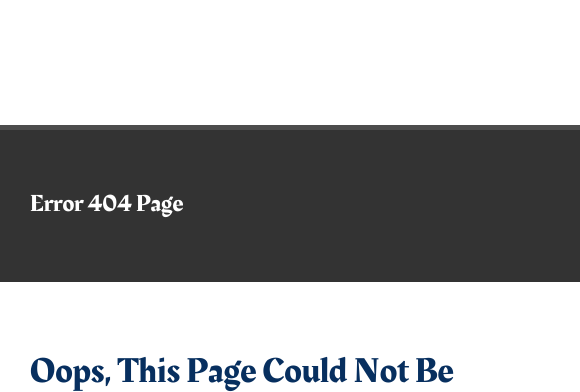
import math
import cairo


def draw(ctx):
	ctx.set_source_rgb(1, 1, 1)
	ctx.paint()
	ctx.set_source_rgb(0.298, 0.298, 0.298)
	ctx.rectangle(0, 125, 580, 5)
	ctx.fill()
	ctx.set_source_rgb(0.2, 0.2, 0.2)
	ctx.rectangle(0, 130, 580, 152)
	ctx.fill()
	ctx.select_font_face('Rakkas')
	ctx.set_font_size(24)
	ctx.set_source_rgb(1, 1, 1)
	ctx.move_to(30, 211)
	ctx.show_text('Error 404 Page')
	ctx.set_font_size(35.6)
	ctx.set_source_rgb(0.031, 0.184, 0.373)
	ctx.move_to(30, 382)
	ctx.show_text('Oops, This Page Could Not Be')


surface = cairo.ImageSurface(cairo.FORMAT_RGB24, 580, 392)
ctx = cairo.Context(surface)
options = cairo.FontOptions()
options.set_hint_metrics(cairo.HINT_METRICS_OFF)
options.set_hint_style(cairo.HINT_STYLE_NONE)
ctx.set_font_options(options)
ctx.set_miter_limit(4)
draw(ctx)
surface.write_to_png('image.png')
